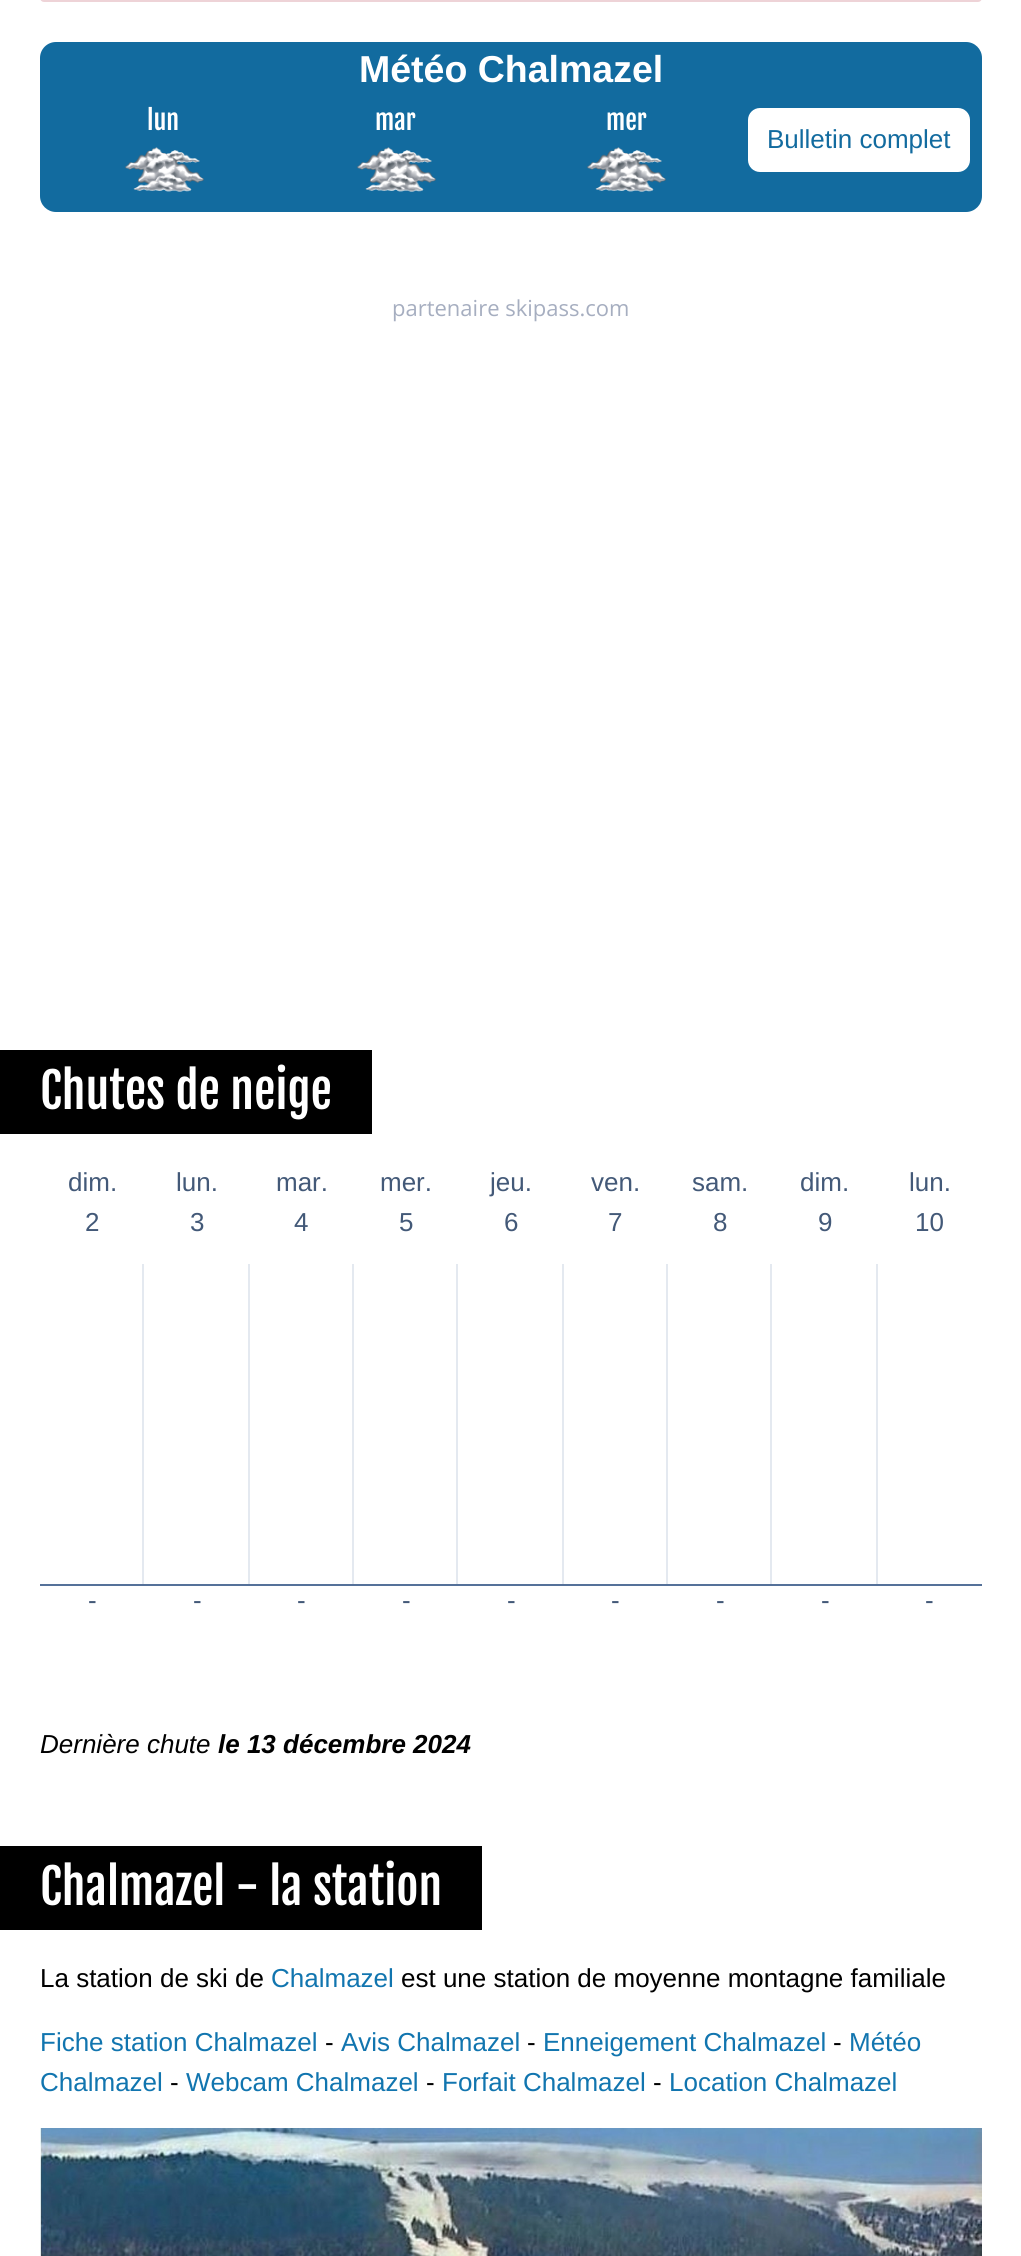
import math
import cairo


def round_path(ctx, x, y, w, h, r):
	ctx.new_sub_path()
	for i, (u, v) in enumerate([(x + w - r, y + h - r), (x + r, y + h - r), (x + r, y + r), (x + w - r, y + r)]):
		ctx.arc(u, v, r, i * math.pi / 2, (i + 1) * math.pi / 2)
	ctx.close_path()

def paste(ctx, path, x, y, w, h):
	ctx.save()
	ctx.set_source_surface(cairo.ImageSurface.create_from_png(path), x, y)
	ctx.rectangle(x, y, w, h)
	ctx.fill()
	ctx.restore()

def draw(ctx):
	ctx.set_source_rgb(1, 1, 1)
	ctx.paint()
	round_path(ctx, 41, -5, 940, 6, 3)
	ctx.set_source_rgb(0.933, 0.827, 0.843)
	ctx.stroke()
	ctx.set_source_rgb(0.071, 0.42, 0.624)
	round_path(ctx, 40, 42, 942, 170, 16)
	ctx.fill()
	ctx.select_font_face('Liberation Sans', cairo.FONT_SLANT_NORMAL, cairo.FONT_WEIGHT_BOLD)
	ctx.set_font_size(37.5)
	ctx.set_source_rgb(1, 1, 1)
	ctx.move_to(359, 82)
	ctx.show_text('Météo Chalmazel')
	ctx.select_font_face('Fjalla One')
	ctx.set_font_size(26)
	ctx.move_to(147, 130)
	ctx.show_text('lun')
	paste(ctx, 'media/1.png', 125, 147, 79, 45)
	ctx.move_to(375, 130)
	ctx.show_text('mar')
	paste(ctx, 'media/2.png', 357, 147, 79, 45)
	ctx.move_to(606, 130)
	ctx.show_text('mer')
	paste(ctx, 'media/1.png', 587, 147, 79, 45)
	round_path(ctx, 748, 108, 222, 64, 12)
	ctx.fill()
	ctx.select_font_face('Liberation Sans')
	ctx.set_source_rgb(0.071, 0.42, 0.624)
	ctx.move_to(767, 148)
	ctx.show_text('Bulletin complet')
	ctx.select_font_face('Open Sans')
	ctx.set_font_size(22)
	ctx.set_source_rgb(0.651, 0.682, 0.753)
	ctx.move_to(392, 316)
	ctx.show_text('partenaire skipass.com')
	ctx.set_source_rgb(0, 0, 0)
	ctx.rectangle(0, 1050, 372, 84)
	ctx.fill()
	ctx.select_font_face('Fjalla One')
	ctx.set_font_size(48)
	ctx.set_source_rgb(1, 1, 1)
	ctx.move_to(40, 1109)
	ctx.show_text('Chutes de neige')
	ctx.select_font_face('Liberation Sans')
	ctx.set_font_size(26)
	ctx.set_source_rgb(0.263, 0.349, 0.471)
	ctx.move_to(68, 1191)
	ctx.show_text('dim.')
	ctx.move_to(85, 1231)
	ctx.show_text('2')
	ctx.set_source_rgb(0.894, 0.914, 0.941)
	ctx.rectangle(142, 1264, 2, 322)
	ctx.fill()
	ctx.set_source_rgb(0.333, 0.443, 0.6)
	ctx.rectangle(40, 1584, 104, 2)
	ctx.fill()
	ctx.set_source_rgb(0.263, 0.349, 0.471)
	for x, y, s in [
		(88, 1609, '-'),
		(176, 1191, 'lun.'),
		(190, 1231, '3'),
	]:
		ctx.move_to(x, y)
		ctx.show_text(s)
	ctx.set_source_rgb(0.894, 0.914, 0.941)
	ctx.rectangle(248, 1264, 2, 322)
	ctx.fill()
	ctx.set_source_rgb(0.333, 0.443, 0.6)
	ctx.rectangle(144, 1584, 106, 2)
	ctx.fill()
	ctx.set_source_rgb(0.263, 0.349, 0.471)
	for x, y, s in [
		(193, 1609, '-'),
		(276, 1191, 'mar.'),
		(294, 1231, '4'),
	]:
		ctx.move_to(x, y)
		ctx.show_text(s)
	ctx.set_source_rgb(0.894, 0.914, 0.941)
	ctx.rectangle(352, 1264, 2, 322)
	ctx.fill()
	ctx.set_source_rgb(0.333, 0.443, 0.6)
	ctx.rectangle(250, 1584, 104, 2)
	ctx.fill()
	ctx.set_source_rgb(0.263, 0.349, 0.471)
	for x, y, s in [
		(297, 1609, '-'),
		(380, 1191, 'mer.'),
		(399, 1231, '5'),
	]:
		ctx.move_to(x, y)
		ctx.show_text(s)
	ctx.set_source_rgb(0.894, 0.914, 0.941)
	ctx.rectangle(456, 1264, 2, 322)
	ctx.fill()
	ctx.set_source_rgb(0.333, 0.443, 0.6)
	ctx.rectangle(354, 1584, 104, 2)
	ctx.fill()
	ctx.set_source_rgb(0.263, 0.349, 0.471)
	for x, y, s in [
		(402, 1609, '-'),
		(490, 1191, 'jeu.'),
		(504, 1231, '6'),
	]:
		ctx.move_to(x, y)
		ctx.show_text(s)
	ctx.set_source_rgb(0.894, 0.914, 0.941)
	ctx.rectangle(562, 1264, 2, 322)
	ctx.fill()
	ctx.set_source_rgb(0.333, 0.443, 0.6)
	ctx.rectangle(458, 1584, 106, 2)
	ctx.fill()
	ctx.set_source_rgb(0.263, 0.349, 0.471)
	for x, y, s in [
		(507, 1609, '-'),
		(591, 1191, 'ven.'),
		(608, 1231, '7'),
	]:
		ctx.move_to(x, y)
		ctx.show_text(s)
	ctx.set_source_rgb(0.894, 0.914, 0.941)
	ctx.rectangle(666, 1264, 2, 322)
	ctx.fill()
	ctx.set_source_rgb(0.333, 0.443, 0.6)
	ctx.rectangle(564, 1584, 104, 2)
	ctx.fill()
	ctx.set_source_rgb(0.263, 0.349, 0.471)
	for x, y, s in [
		(611, 1609, '-'),
		(692, 1191, 'sam.'),
		(713, 1231, '8'),
	]:
		ctx.move_to(x, y)
		ctx.show_text(s)
	ctx.set_source_rgb(0.894, 0.914, 0.941)
	ctx.rectangle(770, 1264, 2, 322)
	ctx.fill()
	ctx.set_source_rgb(0.333, 0.443, 0.6)
	ctx.rectangle(668, 1584, 104, 2)
	ctx.fill()
	ctx.set_source_rgb(0.263, 0.349, 0.471)
	for x, y, s in [
		(716, 1609, '-'),
		(800, 1191, 'dim.'),
		(818, 1231, '9'),
	]:
		ctx.move_to(x, y)
		ctx.show_text(s)
	ctx.set_source_rgb(0.894, 0.914, 0.941)
	ctx.rectangle(876, 1264, 2, 322)
	ctx.fill()
	ctx.set_source_rgb(0.333, 0.443, 0.6)
	ctx.rectangle(772, 1584, 210, 2)
	ctx.fill()
	ctx.set_source_rgb(0.263, 0.349, 0.471)
	for x, y, s in [
		(821, 1609, '-'),
		(909, 1191, 'lun.'),
		(915, 1231, '10'),
		(925, 1609, '-'),
	]:
		ctx.move_to(x, y)
		ctx.show_text(s)
	ctx.select_font_face('Liberation Sans', cairo.FONT_SLANT_ITALIC)
	ctx.set_source_rgb(0, 0, 0)
	ctx.move_to(40, 1753)
	ctx.show_text('Dernière chute')
	ctx.select_font_face('Liberation Sans', cairo.FONT_SLANT_ITALIC, cairo.FONT_WEIGHT_BOLD)
	ctx.move_to(218, 1753)
	ctx.show_text('le 13 décembre 2024')
	ctx.rectangle(0, 1846, 482, 84)
	ctx.fill()
	ctx.select_font_face('Fjalla One')
	ctx.set_font_size(48)
	ctx.set_source_rgb(1, 1, 1)
	ctx.move_to(40, 1905)
	ctx.show_text('Chalmazel - la station')
	ctx.select_font_face('Liberation Sans')
	ctx.set_font_size(26)
	ctx.set_source_rgb(0, 0, 0)
	ctx.move_to(40, 1987)
	ctx.show_text('La station de ski de')
	ctx.set_source_rgb(0.067, 0.459, 0.686)
	ctx.move_to(271, 1987)
	ctx.show_text('Chalmazel')
	ctx.set_source_rgb(0, 0, 0)
	ctx.move_to(401, 1987)
	ctx.show_text('est une station de moyenne montagne familiale')
	ctx.set_source_rgb(0.067, 0.459, 0.686)
	ctx.move_to(40, 2051)
	ctx.show_text('Fiche station Chalmazel')
	ctx.set_source_rgb(0, 0, 0)
	ctx.move_to(325, 2051)
	ctx.show_text('-')
	ctx.set_source_rgb(0.067, 0.459, 0.686)
	ctx.move_to(341, 2051)
	ctx.show_text('Avis Chalmazel')
	ctx.set_source_rgb(0, 0, 0)
	ctx.move_to(527, 2051)
	ctx.show_text('-')
	ctx.set_source_rgb(0.067, 0.459, 0.686)
	ctx.move_to(543, 2051)
	ctx.show_text('Enneigement Chalmazel')
	ctx.set_source_rgb(0, 0, 0)
	ctx.move_to(833, 2051)
	ctx.show_text('-')
	ctx.set_source_rgb(0.067, 0.459, 0.686)
	ctx.move_to(849, 2051)
	ctx.show_text('Météo')
	ctx.move_to(40, 2091)
	ctx.show_text('Chalmazel')
	ctx.set_source_rgb(0, 0, 0)
	ctx.move_to(170, 2091)
	ctx.show_text('-')
	ctx.set_source_rgb(0.067, 0.459, 0.686)
	ctx.move_to(186, 2091)
	ctx.show_text('Webcam Chalmazel')
	ctx.set_source_rgb(0, 0, 0)
	ctx.move_to(426, 2091)
	ctx.show_text('-')
	ctx.set_source_rgb(0.067, 0.459, 0.686)
	ctx.move_to(442, 2091)
	ctx.show_text('Forfait Chalmazel')
	ctx.set_source_rgb(0, 0, 0)
	ctx.move_to(653, 2091)
	ctx.show_text('-')
	ctx.set_source_rgb(0.067, 0.459, 0.686)
	ctx.move_to(669, 2091)
	ctx.show_text('Location Chalmazel')
	paste(ctx, 'media/3.png', 40, 2128, 942, 128)


surface = cairo.ImageSurface(cairo.FORMAT_RGB24, 1021, 2256)
ctx = cairo.Context(surface)
options = cairo.FontOptions()
options.set_hint_metrics(cairo.HINT_METRICS_OFF)
options.set_hint_style(cairo.HINT_STYLE_NONE)
ctx.set_font_options(options)
ctx.set_miter_limit(4)
draw(ctx)
surface.write_to_png('image.png')
